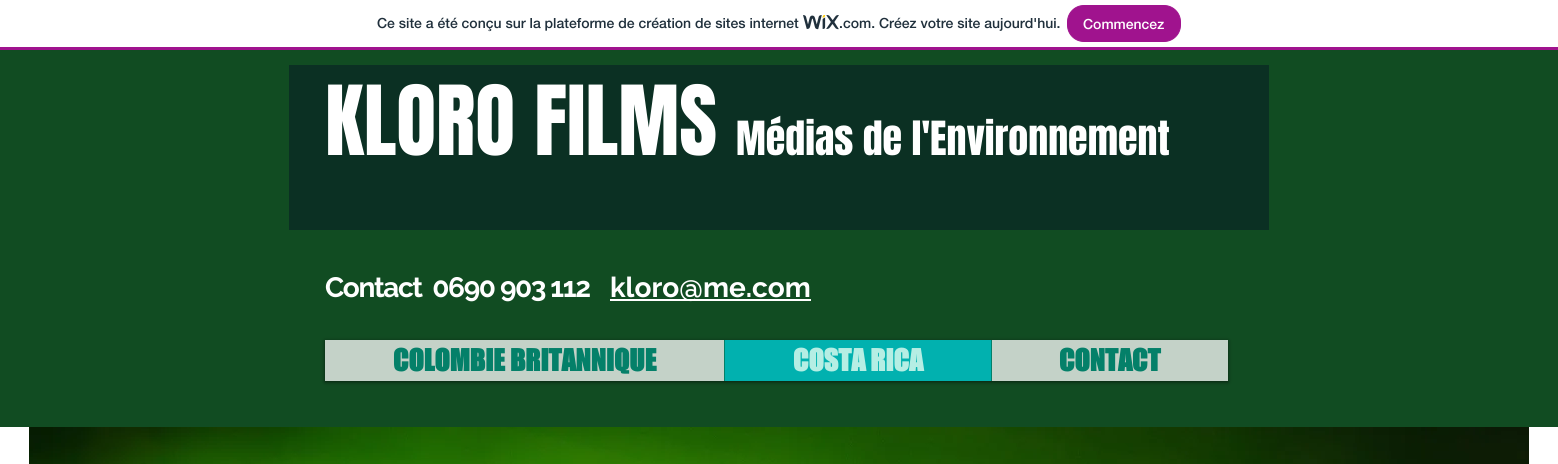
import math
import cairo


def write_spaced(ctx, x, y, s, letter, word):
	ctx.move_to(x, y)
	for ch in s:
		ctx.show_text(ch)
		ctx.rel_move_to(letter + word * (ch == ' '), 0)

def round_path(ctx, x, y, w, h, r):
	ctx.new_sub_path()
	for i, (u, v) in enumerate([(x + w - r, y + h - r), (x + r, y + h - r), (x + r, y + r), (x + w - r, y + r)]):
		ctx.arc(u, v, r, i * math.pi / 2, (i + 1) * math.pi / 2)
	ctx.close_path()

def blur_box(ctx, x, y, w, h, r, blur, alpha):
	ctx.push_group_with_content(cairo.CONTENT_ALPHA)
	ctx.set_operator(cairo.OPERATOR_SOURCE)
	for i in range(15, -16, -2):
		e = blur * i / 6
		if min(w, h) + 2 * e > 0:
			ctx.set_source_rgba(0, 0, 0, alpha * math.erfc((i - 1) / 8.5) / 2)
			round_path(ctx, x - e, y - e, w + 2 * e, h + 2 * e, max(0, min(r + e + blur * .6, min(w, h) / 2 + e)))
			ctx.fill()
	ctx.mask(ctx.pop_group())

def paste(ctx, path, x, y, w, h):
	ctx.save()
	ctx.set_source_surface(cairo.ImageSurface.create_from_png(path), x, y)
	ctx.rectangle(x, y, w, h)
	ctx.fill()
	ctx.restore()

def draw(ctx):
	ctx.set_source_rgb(1, 1, 1)
	ctx.paint()
	ctx.set_source_rgb(0.627, 0.075, 0.557)
	ctx.rectangle(0, 47, 1558, 3)
	ctx.fill()
	ctx.select_font_face('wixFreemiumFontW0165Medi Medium')
	ctx.set_font_size(14)
	ctx.set_source_rgb(0.125, 0.188, 0.235)
	ctx.move_to(377, 28)
	ctx.show_text('Ce site a été conçu sur la plateforme de création de sites internet')
	paste(ctx, 'media/1.png', 803, 15, 36, 15)
	ctx.move_to(839, 28)
	ctx.show_text('.com. Créez votre site aujourd\'hui.')
	ctx.set_source_rgb(0.627, 0.075, 0.557)
	round_path(ctx, 1067.5, 5.5, 113, 36, 16.5)
	ctx.fill_preserve()
	ctx.set_line_width(1)
	ctx.stroke()
	ctx.set_source_rgb(1, 1, 1)
	ctx.move_to(1083, 29)
	ctx.show_text('Commencez')
	ctx.set_source_rgb(0.067, 0.298, 0.133)
	ctx.rectangle(0, 50, 1558, 377)
	ctx.fill()
	ctx.set_source_rgb(0.043, 0.188, 0.137)
	ctx.rectangle(289, 65, 980, 165)
	ctx.fill()
	ctx.select_font_face('Anton')
	ctx.set_font_size(82)
	ctx.set_source_rgb(1, 1, 1)
	ctx.move_to(325, 155)
	ctx.show_text('KLORO FILMS')
	ctx.set_font_size(40)
	ctx.move_to(736, 155)
	ctx.show_text('Médias de l\'Environnement')
	ctx.select_font_face('Raleway', cairo.FONT_SLANT_NORMAL, cairo.FONT_WEIGHT_BOLD)
	ctx.set_font_size(28)
	write_spaced(ctx, 325, 297, 'Contact  0690 903 112', -1.4, 0)
	ctx.rectangle(610, 299, 201, 2)
	ctx.fill()
	ctx.move_to(610, 297)
	ctx.show_text('kloro@me.com')
	ctx.set_source_rgb(0, 0, 0)
	blur_box(ctx, 325, 341, 903, 41, 0, 2, 0.6)
	ctx.set_source_rgb(0.769, 0.824, 0.784)
	ctx.rectangle(325, 340, 903, 41)
	ctx.fill()
	ctx.select_font_face('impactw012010', cairo.FONT_SLANT_NORMAL, cairo.FONT_WEIGHT_BOLD)
	ctx.set_source_rgb(0.016, 0.502, 0.412)
	ctx.move_to(393, 371)
	ctx.show_text('COLOMBIE BRITANNIQUE')
	ctx.set_source_rgb(0.004, 0.694, 0.686)
	ctx.rectangle(725, 340, 266, 41)
	ctx.fill()
	ctx.set_source_rgb(0.016, 0.502, 0.412)
	ctx.rectangle(724, 340, 1, 41)
	ctx.fill()
	ctx.set_source_rgb(0.71, 0.933, 0.894)
	ctx.move_to(793, 371)
	ctx.show_text('COSTA RICA')
	ctx.set_source_rgb(0.016, 0.502, 0.412)
	ctx.rectangle(991, 340, 1, 41)
	ctx.fill()
	ctx.move_to(1059, 371)
	ctx.show_text('CONTACT')
	paste(ctx, 'media/2.png', 29, 427, 1500, 37)


surface = cairo.ImageSurface(cairo.FORMAT_RGB24, 1558, 464)
ctx = cairo.Context(surface)
options = cairo.FontOptions()
options.set_hint_metrics(cairo.HINT_METRICS_OFF)
options.set_hint_style(cairo.HINT_STYLE_NONE)
ctx.set_font_options(options)
ctx.set_miter_limit(4)
draw(ctx)
surface.write_to_png('image.png')
